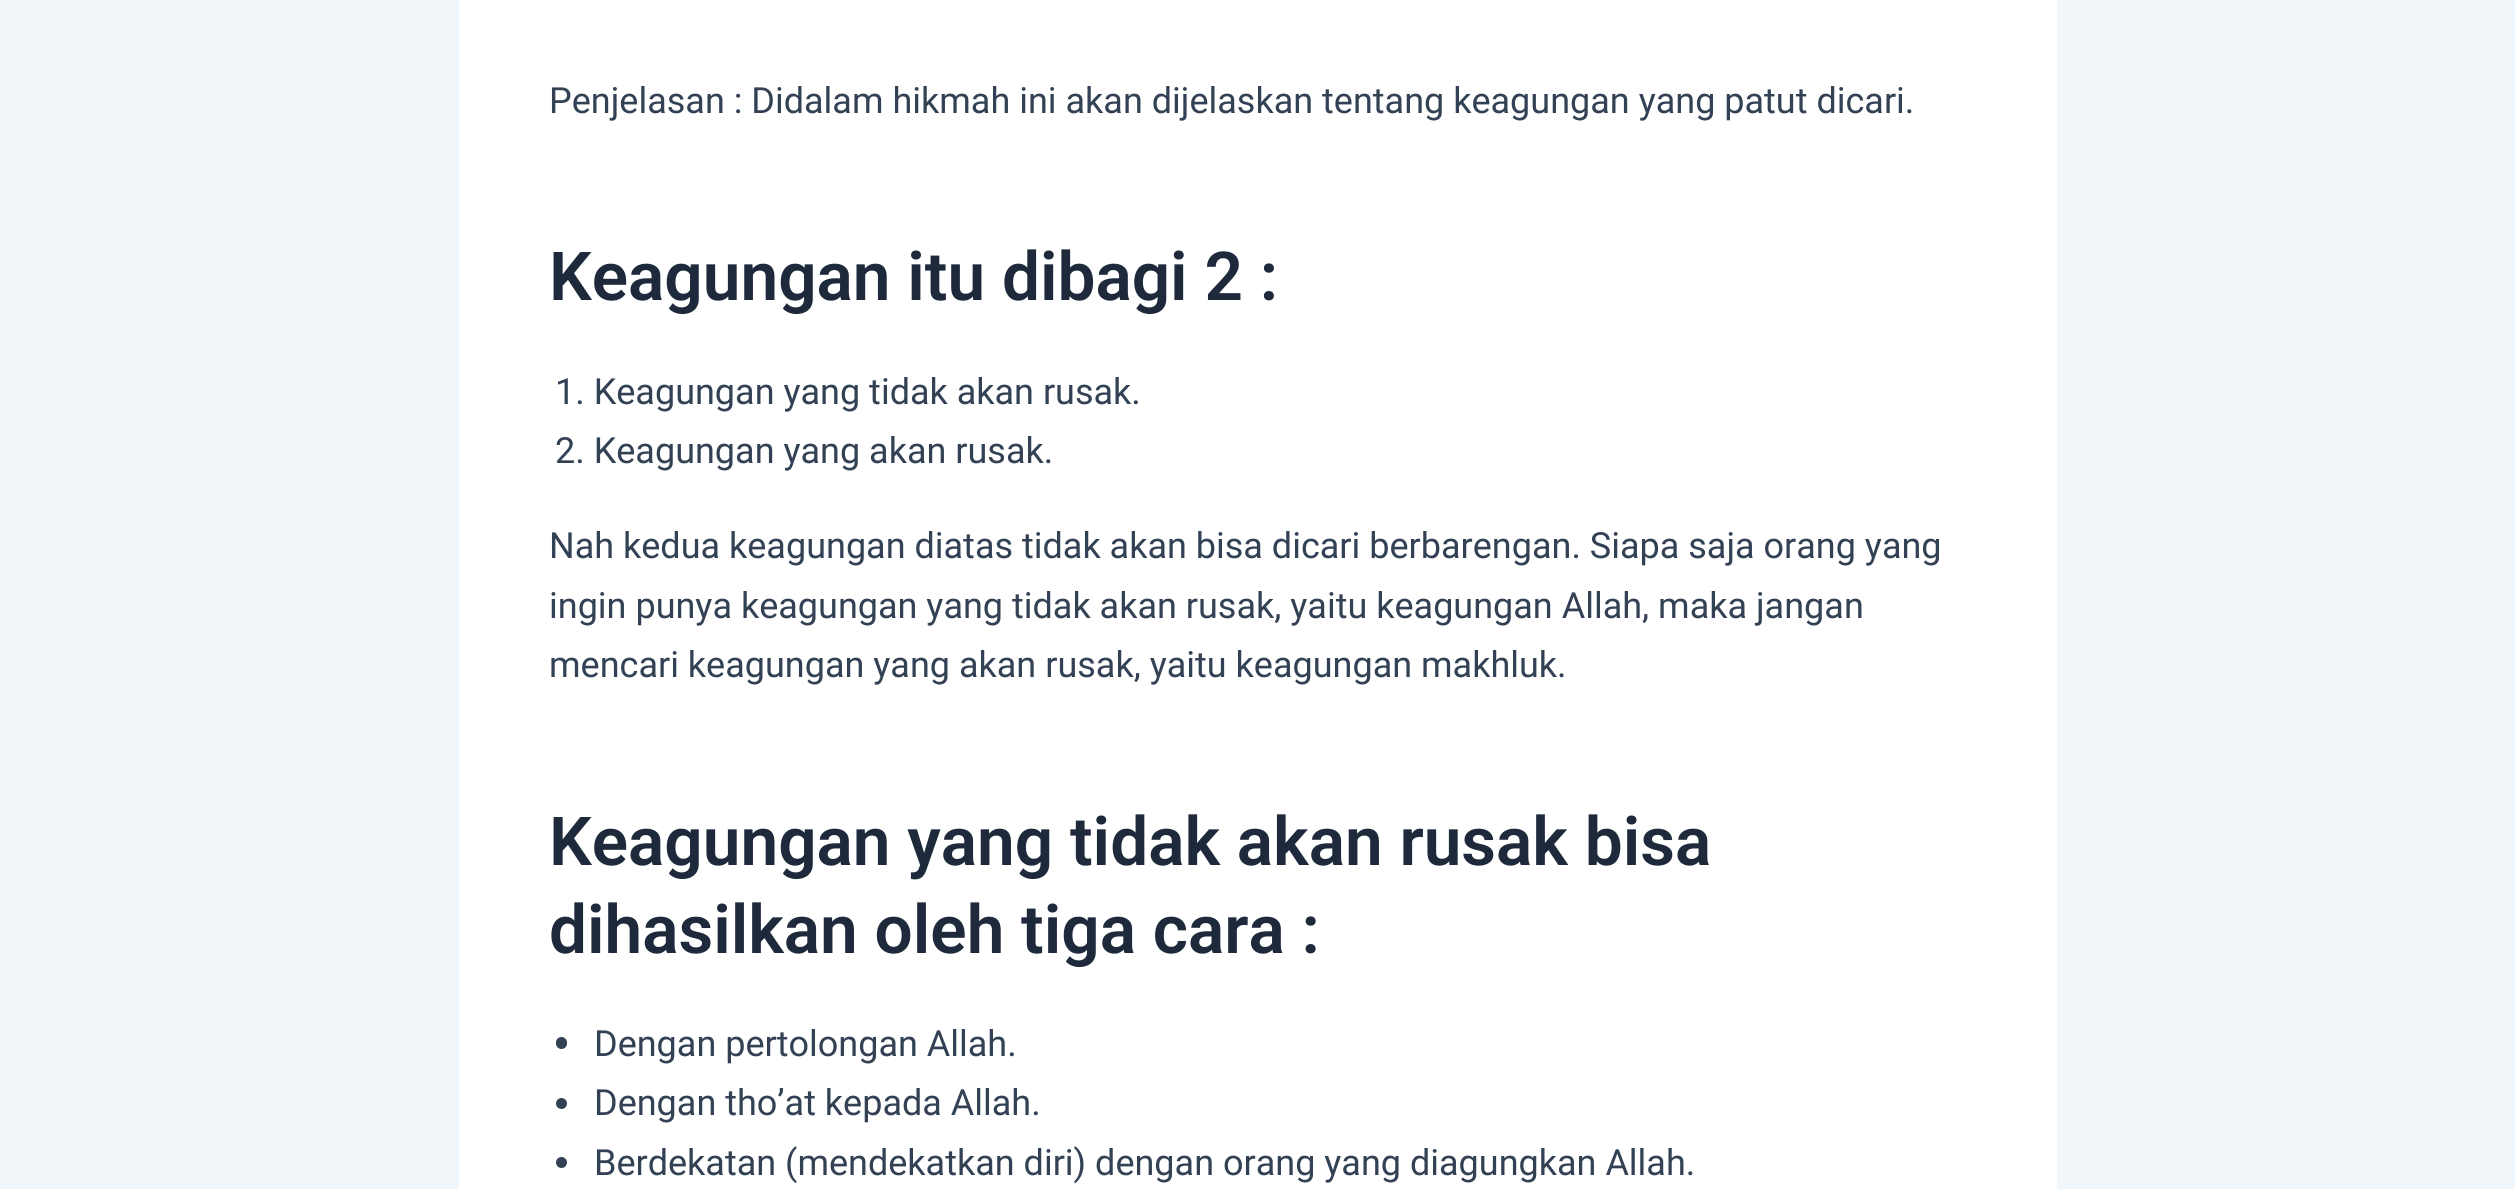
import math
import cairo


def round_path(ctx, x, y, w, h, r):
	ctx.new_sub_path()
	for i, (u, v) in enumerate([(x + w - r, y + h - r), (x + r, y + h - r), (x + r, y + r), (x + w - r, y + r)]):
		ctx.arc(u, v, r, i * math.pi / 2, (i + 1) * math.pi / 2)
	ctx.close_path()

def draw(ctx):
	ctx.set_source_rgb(0.941, 0.961, 0.98)
	ctx.paint()
	ctx.set_source_rgb(1, 1, 1)
	ctx.rectangle(459, 0, 1598, 1189)
	ctx.fill()
	ctx.select_font_face('Roboto')
	ctx.set_font_size(36)
	ctx.set_source_rgb(0.2, 0.255, 0.333)
	ctx.move_to(549, 113)
	ctx.show_text('Penjelasan : Didalam hikmah ini akan dijelaskan tentang keagungan yang patut dicari.')
	ctx.select_font_face('Roboto SemiBold')
	ctx.set_font_size(67.5)
	ctx.set_source_rgb(0.118, 0.161, 0.231)
	ctx.move_to(549, 300)
	ctx.show_text('Keagungan itu dibagi 2 :')
	ctx.select_font_face('Roboto')
	ctx.set_font_size(36)
	ctx.set_source_rgb(0.2, 0.255, 0.333)
	for x, y, s in [
		(555, 404, '1. Keagungan yang tidak akan rusak.'),
		(555, 463, '2. Keagungan yang akan rusak.'),
		(549, 558, 'Nah kedua keagungan diatas tidak akan bisa dicari berbarengan. Siapa saja orang yang'),
		(549, 618, 'ingin punya keagungan yang tidak akan rusak, yaitu keagungan Allah, maka jangan'),
		(549, 677, 'mencari keagungan yang akan rusak, yaitu keagungan makhluk.'),
	]:
		ctx.move_to(x, y)
		ctx.show_text(s)
	ctx.select_font_face('Roboto SemiBold')
	ctx.set_font_size(67.5)
	ctx.set_source_rgb(0.118, 0.161, 0.231)
	ctx.move_to(549, 865)
	ctx.show_text('Keagungan yang tidak akan rusak bisa')
	ctx.move_to(549, 953)
	ctx.show_text('dihasilkan oleh tiga cara :')
	ctx.set_source_rgb(0.2, 0.255, 0.333)
	round_path(ctx, 556, 1037, 11, 12, 5.5)
	ctx.fill()
	ctx.select_font_face('Roboto')
	ctx.set_font_size(36)
	ctx.move_to(594, 1056)
	ctx.show_text('Dengan pertolongan Allah.')
	ctx.new_path()
	ctx.arc(561.5, 1103.5, 5.5, 0, 2 * math.pi)
	ctx.fill()
	ctx.move_to(594, 1115)
	ctx.show_text('Dengan tho’at kepada Allah.')
	ctx.new_path()
	ctx.arc(561.5, 1162.5, 5.5, 0, 2 * math.pi)
	ctx.fill()
	ctx.move_to(594, 1175)
	ctx.show_text('Berdekatan (mendekatkan diri) dengan orang yang diagungkan Allah.')


surface = cairo.ImageSurface(cairo.FORMAT_RGB24, 2515, 1189)
ctx = cairo.Context(surface)
options = cairo.FontOptions()
options.set_hint_metrics(cairo.HINT_METRICS_OFF)
options.set_hint_style(cairo.HINT_STYLE_NONE)
ctx.set_font_options(options)
ctx.set_miter_limit(4)
draw(ctx)
surface.write_to_png('image.png')
